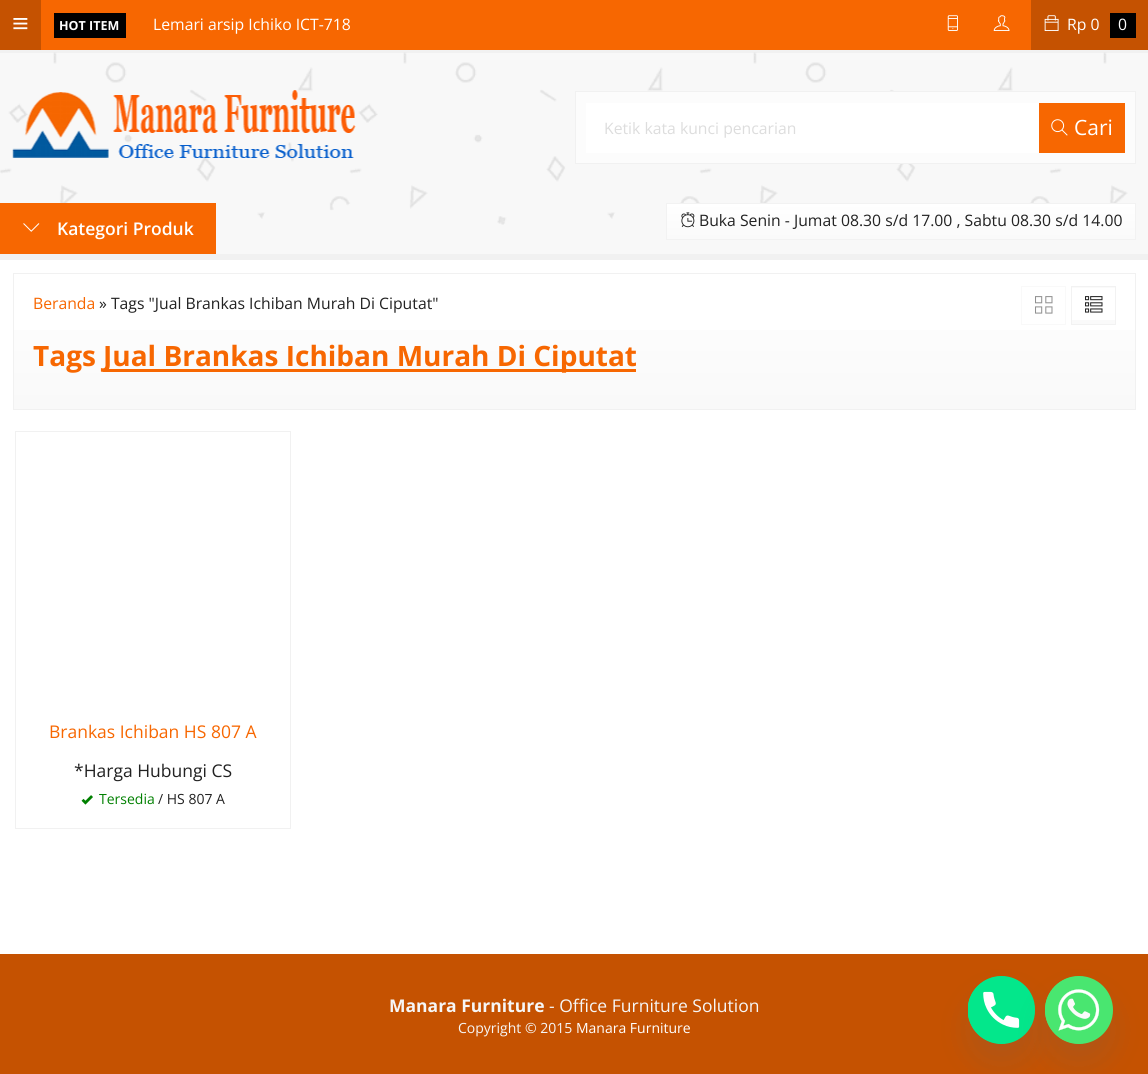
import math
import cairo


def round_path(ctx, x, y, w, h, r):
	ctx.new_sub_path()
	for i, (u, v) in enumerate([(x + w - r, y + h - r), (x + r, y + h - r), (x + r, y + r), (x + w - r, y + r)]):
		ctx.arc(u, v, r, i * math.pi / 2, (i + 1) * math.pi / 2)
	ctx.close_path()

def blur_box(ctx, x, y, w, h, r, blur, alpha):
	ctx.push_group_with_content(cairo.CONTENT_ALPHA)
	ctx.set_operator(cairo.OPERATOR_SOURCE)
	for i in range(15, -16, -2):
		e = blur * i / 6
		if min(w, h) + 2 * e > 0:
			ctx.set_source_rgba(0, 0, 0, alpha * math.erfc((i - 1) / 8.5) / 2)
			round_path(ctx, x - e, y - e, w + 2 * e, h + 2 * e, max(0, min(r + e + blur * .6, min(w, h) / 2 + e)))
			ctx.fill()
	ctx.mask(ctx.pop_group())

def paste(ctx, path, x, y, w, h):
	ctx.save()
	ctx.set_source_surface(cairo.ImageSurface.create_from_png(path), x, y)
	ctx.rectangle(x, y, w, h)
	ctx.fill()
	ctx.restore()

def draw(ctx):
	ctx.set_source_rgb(0.945, 0.945, 0.945)
	ctx.paint()
	ctx.set_source_rgb(0.965, 0.404, 0.004)
	ctx.rectangle(41, 0, 990, 50)
	ctx.fill()
	ctx.set_source_rgb(0.773, 0.322, 0.004)
	ctx.rectangle(0, 0, 41, 50)
	ctx.fill()
	paste(ctx, 'media/1.png', 13, 18, 15, 12)
	ctx.set_source_rgb(0, 0, 0)
	ctx.rectangle(54, 13, 72, 25)
	ctx.fill()
	ctx.select_font_face('Open Sans', cairo.FONT_SLANT_NORMAL, cairo.FONT_WEIGHT_BOLD)
	ctx.set_font_size(12.5)
	ctx.set_source_rgb(1, 1, 1)
	ctx.move_to(59, 30)
	ctx.show_text('HOT ITEM')
	ctx.select_font_face('Open Sans')
	ctx.set_font_size(15.75)
	ctx.move_to(153, 30)
	ctx.show_text('Lemari arsip Ichiko ICT-718')
	paste(ctx, 'media/2.png', 947, 15, 11, 16)
	paste(ctx, 'media/3.png', 993, 15, 17, 16)
	ctx.set_source_rgb(0.773, 0.322, 0.004)
	ctx.rectangle(1031, 0, 117, 50)
	ctx.fill()
	paste(ctx, 'media/4.png', 1044, 15, 15, 16)
	ctx.set_source_rgb(1, 1, 1)
	ctx.move_to(1067, 30)
	ctx.show_text('Rp 0')
	ctx.set_source_rgb(0, 0, 0)
	ctx.rectangle(1110, 13, 26, 25)
	ctx.fill()
	ctx.set_source_rgb(1, 1, 1)
	ctx.move_to(1118, 30)
	ctx.show_text('0')
	ctx.set_source_rgb(0.969, 0.969, 0.969)
	ctx.rectangle(0, 53, 1148, 201)
	ctx.fill()
	paste(ctx, 'media/5.png', 0, 52, 1128, 173)
	paste(ctx, 'media/6.png', 12, 90, 344, 68)
	ctx.set_source_rgb(0.988, 0.988, 0.988)
	ctx.rectangle(575.5, 91.5, 560, 72)
	ctx.fill_preserve()
	ctx.set_source_rgb(0.945, 0.945, 0.945)
	ctx.set_line_width(1)
	ctx.stroke()
	ctx.set_source_rgb(1, 1, 1)
	ctx.rectangle(586, 103, 453, 50)
	ctx.fill()
	ctx.set_source_rgb(0.867, 0.867, 0.867)
	ctx.move_to(604, 134)
	ctx.show_text('Ketik kata kunci pencarian')
	ctx.set_source_rgb(0.965, 0.404, 0.004)
	ctx.rectangle(1039, 103, 86, 50)
	ctx.fill()
	paste(ctx, 'media/7.png', 1051, 119, 17, 17)
	ctx.set_font_size(21)
	ctx.set_source_rgb(1, 1, 1)
	ctx.move_to(1074, 135)
	ctx.show_text('Cari')
	ctx.set_source_rgb(0.965, 0.404, 0.004)
	ctx.rectangle(0, 203, 216, 51)
	ctx.fill()
	paste(ctx, 'media/8.png', 23, 223, 17, 9)
	ctx.select_font_face('Open Sans SemiBold')
	ctx.set_font_size(17.5)
	ctx.set_source_rgb(1, 1, 1)
	ctx.move_to(57, 235)
	ctx.show_text('Kategori Produk')
	gradient = cairo.LinearGradient(901, 239, 901, 204)
	gradient.add_color_stop_rgba(0, 0.98, 0.98, 0.98, 1)
	gradient.add_color_stop_rgba(1, 1, 1, 1, 1)
	ctx.set_source(gradient)
	ctx.rectangle(667, 204, 468, 35)
	ctx.fill()
	ctx.rectangle(666.5, 203.5, 469, 36)
	ctx.set_source_rgb(0.949, 0.949, 0.949)
	ctx.stroke()
	paste(ctx, 'media/9.png', 681, 212, 14, 16)
	ctx.select_font_face('Open Sans')
	ctx.set_font_size(15.75)
	ctx.set_source_rgb(0.133, 0.133, 0.133)
	ctx.move_to(699, 226)
	ctx.show_text('Buka Senin - Jumat 08.30 s/d 17.00 , Sabtu 08.30 s/d 14.00')
	ctx.set_source_rgb(1, 1, 1)
	ctx.rectangle(0, 260, 1148, 694)
	ctx.fill()
	gradient = cairo.LinearGradient(574, 274, 574, 409)
	gradient.add_color_stop_rgba(0, 1, 1, 1, 1)
	gradient.add_color_stop_rgba(1, 0.976, 0.976, 0.976, 1)
	ctx.set_source(gradient)
	ctx.rectangle(14, 330, 1121, 79)
	ctx.fill()
	ctx.rectangle(13.5, 273.5, 1122, 136)
	ctx.set_source_rgb(0.945, 0.945, 0.945)
	ctx.stroke()
	ctx.set_source_rgb(0.965, 0.404, 0.004)
	ctx.move_to(33, 309)
	ctx.show_text('Beranda')
	ctx.set_source_rgb(0.133, 0.133, 0.133)
	ctx.move_to(99, 309)
	ctx.show_text('» Tags "Jual Brankas Ichiban Murah Di Ciputat"')
	ctx.rectangle(1021.5, 286.5, 44, 38)
	ctx.set_source_rgb(0.973, 0.973, 0.973)
	ctx.stroke()
	gradient = cairo.LinearGradient(1094, 288, 1094, 251)
	gradient.add_color_stop_rgba(0, 0.98, 0.98, 0.98, 1)
	gradient.add_color_stop_rgba(1, 1, 1, 1, 1)
	ctx.set_source(gradient)
	ctx.rectangle(1071, 287, 45, 1)
	ctx.fill()
	gradient = cairo.LinearGradient(1094, 324, 1094, 288)
	gradient.add_color_stop_rgba(0, 0.98, 0.98, 0.98, 1)
	gradient.add_color_stop_rgba(1, 1, 1, 1, 1)
	ctx.set_source(gradient)
	ctx.rectangle(1072, 320, 43, 4)
	ctx.fill()
	ctx.rectangle(1071.5, 286.5, 44, 38)
	ctx.set_source_rgb(0.949, 0.949, 0.949)
	ctx.stroke()
	paste(ctx, 'media/10.png', 1035, 296, 18, 18)
	paste(ctx, 'media/11.png', 1085, 296, 18, 17)
	ctx.select_font_face('Open Sans', cairo.FONT_SLANT_NORMAL, cairo.FONT_WEIGHT_BOLD)
	ctx.set_font_size(28)
	ctx.set_source_rgb(0.965, 0.404, 0.004)
	ctx.move_to(33, 366)
	ctx.show_text('Tags')
	ctx.rectangle(103, 369, 533, 3)
	ctx.fill()
	ctx.move_to(103, 366)
	ctx.show_text('Jual Brankas Ichiban Murah Di Ciputat')
	ctx.rectangle(15.5, 431.5, 275, 397)
	ctx.set_source_rgb(0.945, 0.945, 0.945)
	ctx.stroke()
	ctx.select_font_face('Open Sans')
	ctx.set_font_size(17.5)
	ctx.set_source_rgb(0.965, 0.404, 0.004)
	ctx.move_to(49, 738)
	ctx.show_text('Brankas Ichiban HS 807 A')
	ctx.set_source_rgb(0.133, 0.133, 0.133)
	ctx.move_to(74, 777)
	ctx.show_text('*Harga Hubungi CS')
	paste(ctx, 'media/12.png', 81, 795, 12, 10)
	ctx.set_font_size(14)
	ctx.set_source_rgb(0, 0.502, 0)
	ctx.move_to(99, 804)
	ctx.show_text('Tersedia')
	ctx.set_source_rgb(0.133, 0.133, 0.133)
	ctx.move_to(158, 804)
	ctx.show_text('/ HS 807 A')
	ctx.set_source_rgb(0.773, 0.322, 0.004)
	ctx.rectangle(0, 954, 1148, 120)
	ctx.fill()
	ctx.select_font_face('Open Sans', cairo.FONT_SLANT_NORMAL, cairo.FONT_WEIGHT_BOLD)
	ctx.set_font_size(17.5)
	ctx.set_source_rgb(0.961, 0.961, 0.961)
	ctx.move_to(389, 1012)
	ctx.show_text('Manara Furniture')
	ctx.select_font_face('Open Sans')
	ctx.move_to(549, 1012)
	ctx.show_text('- Office Furniture Solution')
	ctx.set_font_size(14)
	ctx.move_to(458, 1033)
	ctx.show_text('Copyright © 2015')
	ctx.set_source_rgb(1, 1, 1)
	ctx.move_to(576, 1033)
	ctx.show_text('Manara Furniture')
	ctx.set_source_rgb(0.286, 0.408, 0.494)
	blur_box(ctx, 968, 996, 67, 68, 33.5, 15, 0.16)
	ctx.set_source_rgb(0.012, 0.906, 0.545)
	round_path(ctx, 968, 976, 67, 68, 33.5)
	ctx.fill()
	paste(ctx, 'media/13.png', 968, 976, 67, 68)
	ctx.set_source_rgb(0.286, 0.408, 0.494)
	blur_box(ctx, 1045, 996, 68, 68, 34, 15, 0.16)
	ctx.set_source_rgb(0.286, 0.902, 0.439)
	ctx.arc(1079, 1010, 34, 0, 2 * math.pi)
	ctx.fill()
	paste(ctx, 'media/14.png', 1045, 976, 55, 68)


surface = cairo.ImageSurface(cairo.FORMAT_RGB24, 1148, 1074)
ctx = cairo.Context(surface)
options = cairo.FontOptions()
options.set_hint_metrics(cairo.HINT_METRICS_OFF)
options.set_hint_style(cairo.HINT_STYLE_NONE)
ctx.set_font_options(options)
ctx.set_miter_limit(4)
draw(ctx)
surface.write_to_png('image.png')
